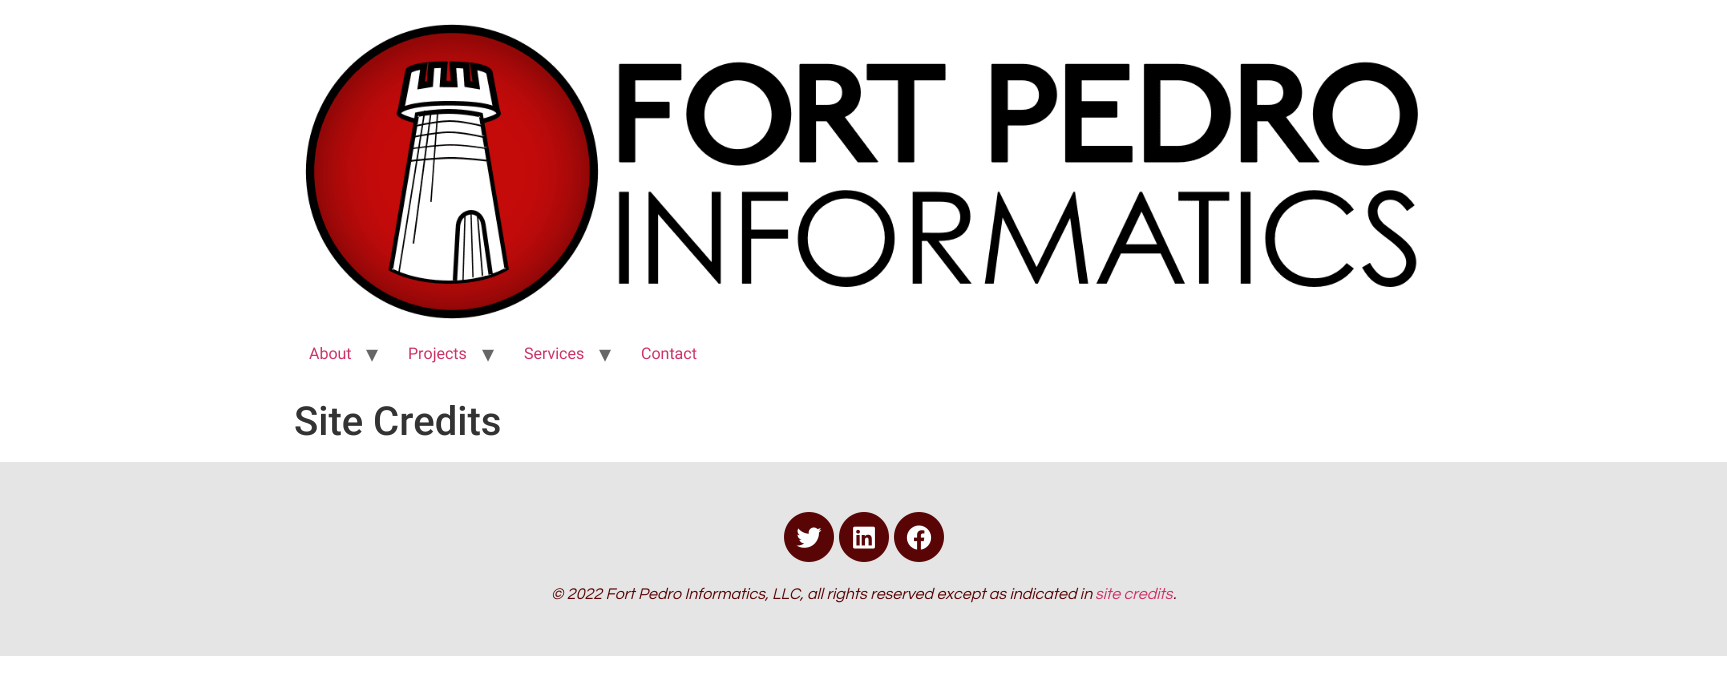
import math
import cairo


def paste(ctx, path, x, y, w, h):
	ctx.save()
	ctx.set_source_surface(cairo.ImageSurface.create_from_png(path), x, y)
	ctx.rectangle(x, y, w, h)
	ctx.fill()
	ctx.restore()

def draw(ctx):
	ctx.set_source_rgb(1, 1, 1)
	ctx.paint()
	paste(ctx, 'media/1.png', 305, 24, 1113, 295)
	ctx.select_font_face('Roboto')
	ctx.set_font_size(16)
	ctx.set_source_rgb(0.8, 0.2, 0.4)
	ctx.move_to(309, 359)
	ctx.show_text('About')
	ctx.select_font_face('DejaVu Sans')
	ctx.set_font_size(24)
	ctx.set_source_rgb(0.4, 0.4, 0.4)
	ctx.move_to(366, 362)
	ctx.show_text('▾')
	ctx.select_font_face('Roboto')
	ctx.set_font_size(16)
	ctx.set_source_rgb(0.8, 0.2, 0.4)
	ctx.move_to(408, 359)
	ctx.show_text('Projects')
	ctx.select_font_face('DejaVu Sans')
	ctx.set_font_size(24)
	ctx.set_source_rgb(0.4, 0.4, 0.4)
	ctx.move_to(482, 362)
	ctx.show_text('▾')
	ctx.select_font_face('Roboto')
	ctx.set_font_size(16)
	ctx.set_source_rgb(0.8, 0.2, 0.4)
	ctx.move_to(524, 359)
	ctx.show_text('Services')
	ctx.select_font_face('DejaVu Sans')
	ctx.set_font_size(24)
	ctx.set_source_rgb(0.4, 0.4, 0.4)
	ctx.move_to(599, 362)
	ctx.show_text('▾')
	ctx.select_font_face('Roboto')
	ctx.set_font_size(16)
	ctx.set_source_rgb(0.8, 0.2, 0.4)
	ctx.move_to(641, 359)
	ctx.show_text('Contact')
	ctx.select_font_face('Roboto Medium')
	ctx.set_font_size(40)
	ctx.set_source_rgb(0.2, 0.2, 0.2)
	ctx.move_to(294, 435)
	ctx.show_text('Site Credits')
	ctx.set_source_rgb(0.898, 0.898, 0.898)
	ctx.rectangle(0, 462, 1727, 194)
	ctx.fill()
	ctx.set_source_rgb(0.349, 0.02, 0.02)
	ctx.arc(809, 537, 25, 0, 2 * math.pi)
	ctx.fill()
	paste(ctx, 'media/2.png', 796, 527, 26, 21)
	ctx.arc(864, 537, 25, 0, 2 * math.pi)
	ctx.fill()
	paste(ctx, 'media/3.png', 853, 526, 22, 23)
	ctx.arc(919, 537, 25, 0, 2 * math.pi)
	ctx.fill()
	paste(ctx, 'media/4.png', 906, 525, 26, 25)
	ctx.select_font_face('Questrial', cairo.FONT_SLANT_ITALIC)
	ctx.set_font_size(16)
	ctx.move_to(551, 599)
	ctx.show_text('© 2022 Fort Pedro Informatics, LLC, all rights reserved except as indicated in')
	ctx.set_source_rgb(0.8, 0.2, 0.4)
	ctx.move_to(1095, 599)
	ctx.show_text('site credits')
	ctx.set_source_rgb(0.349, 0.02, 0.02)
	ctx.move_to(1173, 599)
	ctx.show_text('.')


surface = cairo.ImageSurface(cairo.FORMAT_RGB24, 1727, 683)
ctx = cairo.Context(surface)
options = cairo.FontOptions()
options.set_hint_metrics(cairo.HINT_METRICS_OFF)
options.set_hint_style(cairo.HINT_STYLE_NONE)
ctx.set_font_options(options)
ctx.set_miter_limit(4)
draw(ctx)
surface.write_to_png('image.png')
